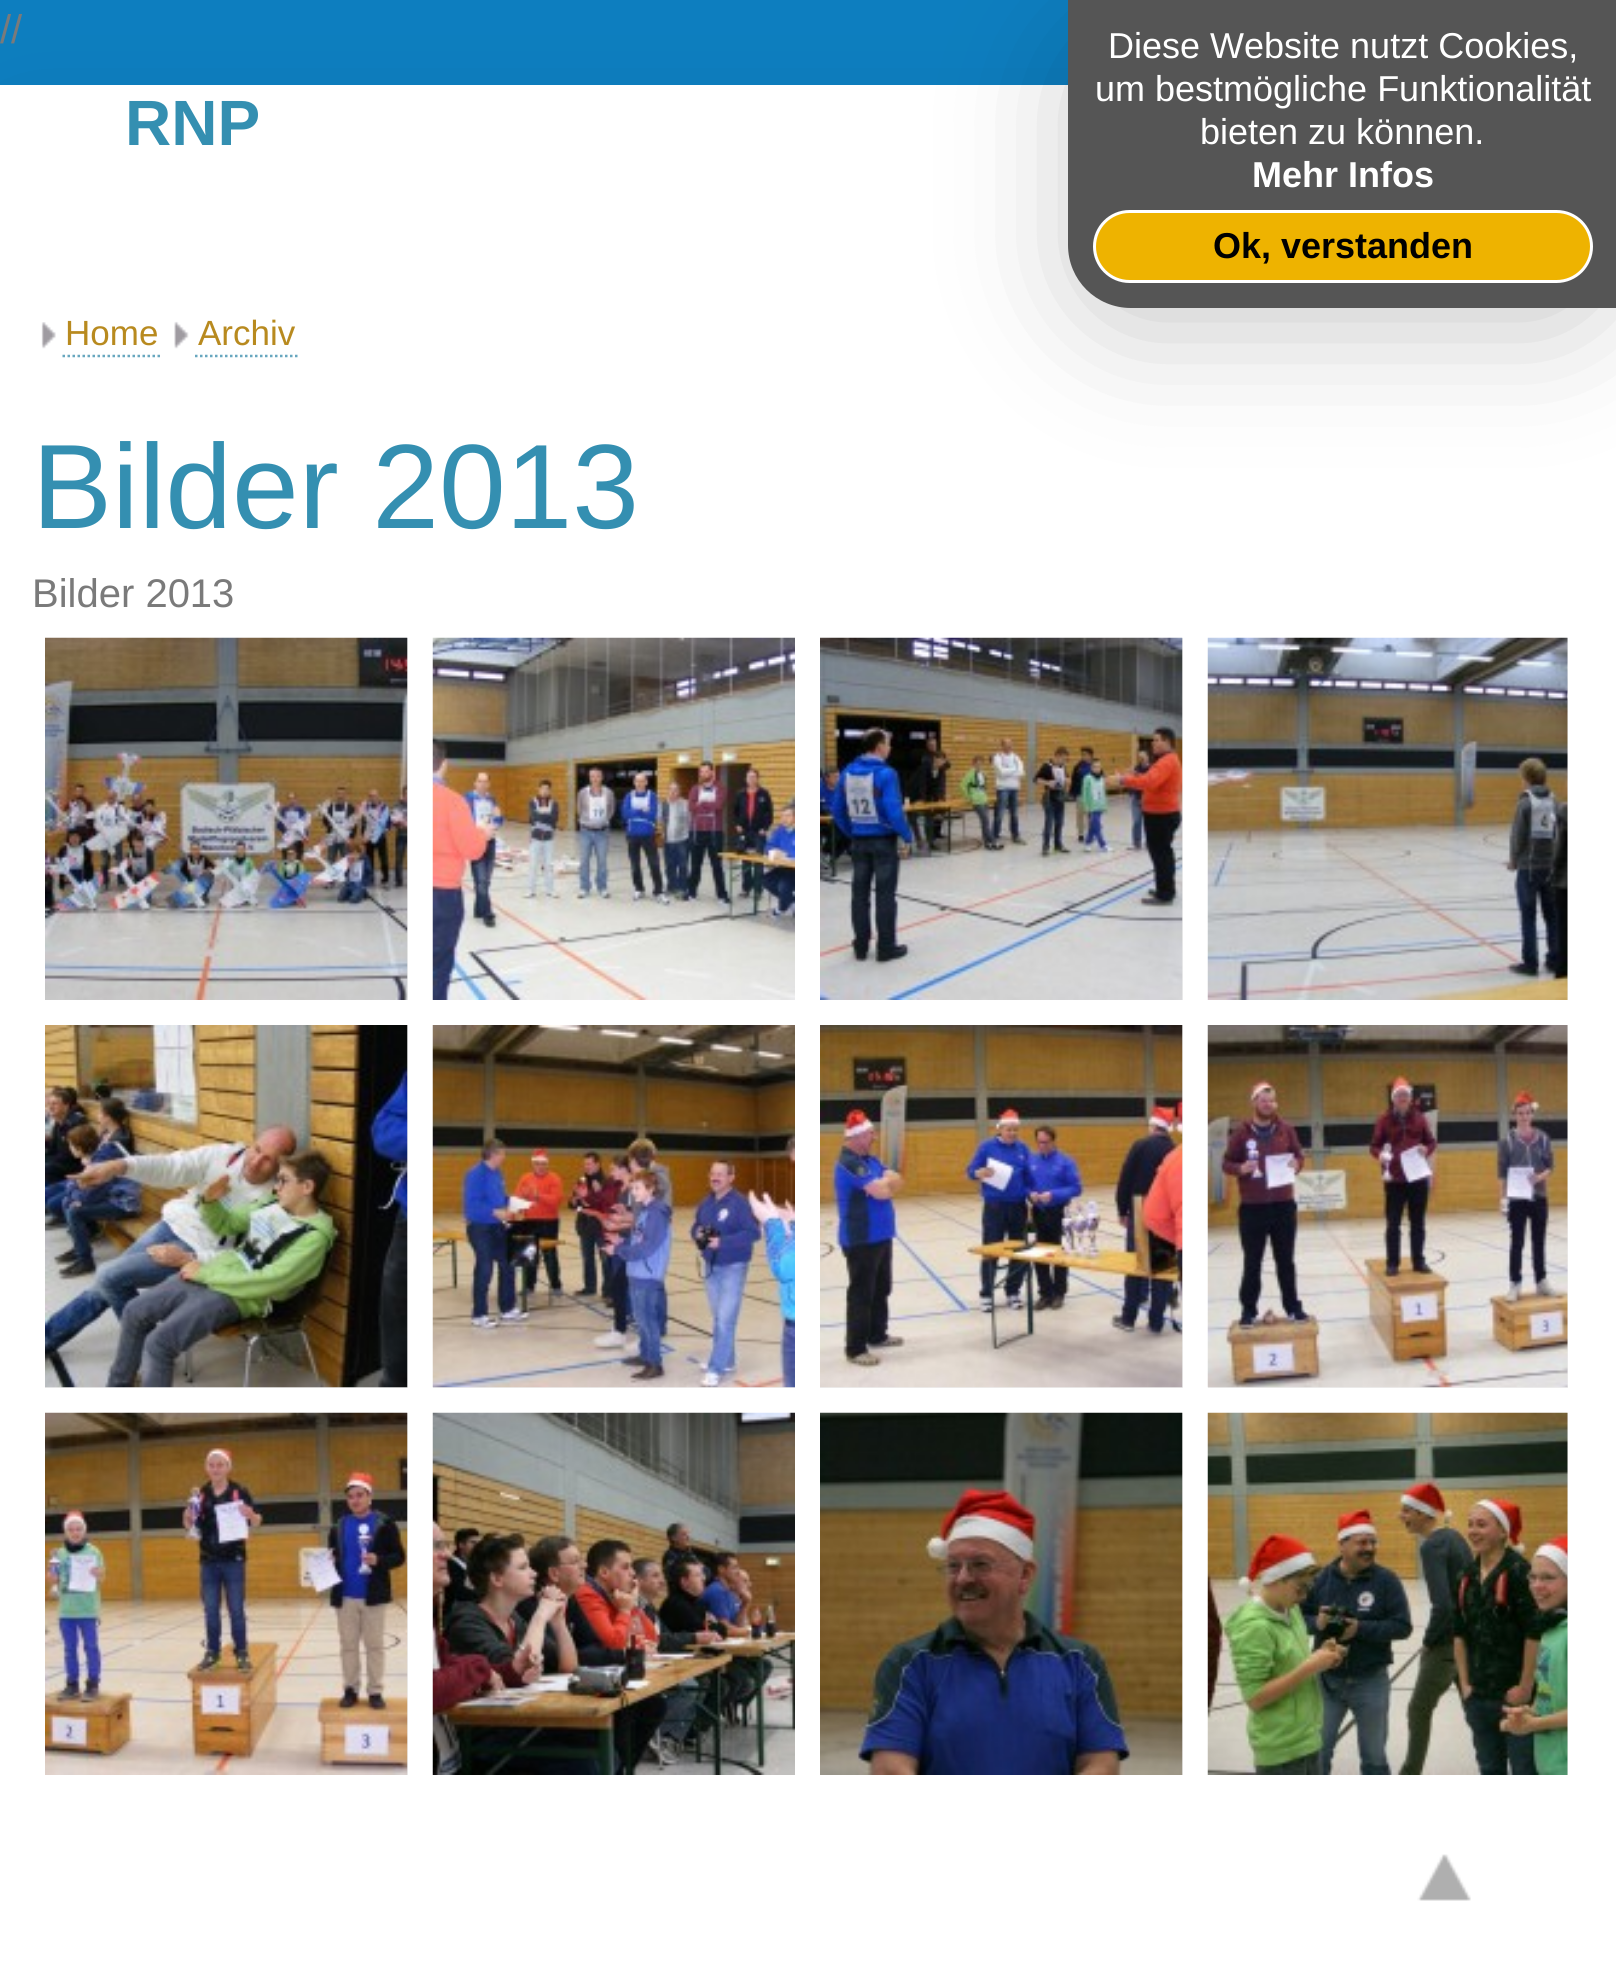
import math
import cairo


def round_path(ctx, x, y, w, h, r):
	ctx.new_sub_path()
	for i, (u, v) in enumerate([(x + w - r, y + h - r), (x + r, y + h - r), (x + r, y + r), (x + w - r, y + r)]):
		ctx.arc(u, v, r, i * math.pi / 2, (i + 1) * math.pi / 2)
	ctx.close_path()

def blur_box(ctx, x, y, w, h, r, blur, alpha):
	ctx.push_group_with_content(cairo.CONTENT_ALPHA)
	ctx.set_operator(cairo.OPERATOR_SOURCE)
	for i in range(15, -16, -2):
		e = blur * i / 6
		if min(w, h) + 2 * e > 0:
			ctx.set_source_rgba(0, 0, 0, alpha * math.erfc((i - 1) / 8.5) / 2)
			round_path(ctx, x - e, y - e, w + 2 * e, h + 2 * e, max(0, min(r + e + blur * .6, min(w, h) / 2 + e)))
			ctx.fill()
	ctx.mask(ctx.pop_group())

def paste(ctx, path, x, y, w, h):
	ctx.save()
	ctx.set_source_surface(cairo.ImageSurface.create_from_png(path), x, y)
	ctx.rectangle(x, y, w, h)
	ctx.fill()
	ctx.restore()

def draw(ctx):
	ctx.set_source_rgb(0.051, 0.494, 0.749)
	ctx.paint()
	ctx.set_source_rgb(0, 0, 0)
	blur_box(ctx, 25, 160, 1568, 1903, 0, 50, 0.4)
	ctx.select_font_face('Liberation Sans')
	ctx.set_font_size(40)
	ctx.set_source_rgb(0.478, 0.478, 0.478)
	ctx.move_to(0, 43)
	ctx.show_text('//')
	ctx.set_source_rgb(1, 1, 1)
	ctx.rectangle(0, 85, 1616, 1898)
	ctx.fill()
	ctx.select_font_face('Liberation Sans', cairo.FONT_SLANT_NORMAL, cairo.FONT_WEIGHT_BOLD)
	ctx.set_font_size(64)
	ctx.set_source_rgb(0.204, 0.561, 0.694)
	ctx.move_to(125, 145)
	ctx.show_text('RNP')
	paste(ctx, 'media/1.png', 41, 322, 15, 27)
	ctx.select_font_face('Liberation Sans')
	ctx.set_font_size(35)
	ctx.set_source_rgb(0.722, 0.541, 0.122)
	ctx.move_to(65, 345)
	ctx.show_text('Home')
	ctx.new_path()
	ctx.move_to(62.5, 356)
	ctx.line_to(160, 356)
	ctx.set_source_rgb(0.408, 0.655, 0.749)
	ctx.set_line_width(2.5)
	ctx.set_dash([2.5, 2.5])
	ctx.stroke()
	paste(ctx, 'media/2.png', 174, 321, 15, 28)
	ctx.set_source_rgb(0.722, 0.541, 0.122)
	ctx.move_to(198, 345)
	ctx.show_text('Archiv')
	ctx.new_path()
	ctx.move_to(195, 356)
	ctx.line_to(297.5, 356)
	ctx.set_source_rgb(0.408, 0.655, 0.749)
	ctx.stroke()
	ctx.set_font_size(120)
	ctx.set_source_rgb(0.204, 0.561, 0.694)
	ctx.move_to(32, 528)
	ctx.show_text('Bilder 2013')
	ctx.set_font_size(40)
	ctx.set_source_rgb(0.478, 0.478, 0.478)
	ctx.move_to(32, 607)
	ctx.show_text('Bilder 2013')
	ctx.set_source_rgb(0.933, 0.933, 0.933)
	ctx.rectangle(407, 638, 1, 362)
	ctx.fill()
	paste(ctx, 'media/3.png', 45, 637, 363, 363)
	paste(ctx, 'media/4.png', 432, 637, 363, 363)
	ctx.rectangle(1182, 638, 1, 362)
	ctx.fill()
	paste(ctx, 'media/5.png', 820, 637, 363, 363)
	ctx.rectangle(1567, 638, 1, 362)
	ctx.fill()
	paste(ctx, 'media/6.png', 1207, 637, 361, 363)
	ctx.rectangle(45, 1025, 363, 363)
	ctx.fill()
	paste(ctx, 'media/7.png', 45, 1025, 363, 363)
	ctx.rectangle(433, 1387, 362, 1)
	ctx.fill()
	paste(ctx, 'media/8.png', 432, 1025, 363, 363)
	ctx.rectangle(820, 1025, 363, 363)
	ctx.fill()
	paste(ctx, 'media/9.png', 820, 1025, 363, 363)
	ctx.rectangle(1208, 1025, 360, 363)
	ctx.fill()
	paste(ctx, 'media/10.png', 1207, 1025, 361, 363)
	ctx.rectangle(407, 1413, 1, 362)
	ctx.fill()
	paste(ctx, 'media/11.png', 45, 1412, 363, 363)
	paste(ctx, 'media/12.png', 432, 1412, 363, 363)
	ctx.rectangle(1182, 1413, 1, 362)
	ctx.fill()
	paste(ctx, 'media/13.png', 820, 1412, 363, 363)
	ctx.rectangle(1567, 1413, 1, 362)
	ctx.fill()
	paste(ctx, 'media/14.png', 1207, 1412, 361, 363)
	ctx.set_source_rgb(0, 0, 0)
	blur_box(ctx, 1068, 25, 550, 308, 63, 62.5, 0.2)
	ctx.set_source_rgb(0.333, 0.333, 0.333)
	ctx.new_path()
	ctx.move_to(1068, 0)
	ctx.line_to(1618, 0)
	ctx.line_to(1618, 308)
	ctx.line_to(1131, 308)
	ctx.curve_to(1096, 308, 1068, 280, 1068, 245)
	ctx.close_path()
	ctx.fill()
	ctx.set_font_size(36)
	ctx.set_source_rgb(1, 1, 1)
	for x, y, s in [
		(1108, 58, 'Diese Website nutzt Cookies,'),
		(1095, 101, 'um bestmögliche Funktionalität'),
		(1200, 144, 'bieten zu können.'),
	]:
		ctx.move_to(x, y)
		ctx.show_text(s)
	ctx.select_font_face('Liberation Sans', cairo.FONT_SLANT_NORMAL, cairo.FONT_WEIGHT_BOLD)
	ctx.move_to(1252, 187)
	ctx.show_text('Mehr Infos')
	ctx.set_source_rgb(0.933, 0.702, 0)
	round_path(ctx, 1094.5, 211.5, 497, 70, 35)
	ctx.fill_preserve()
	ctx.set_source_rgb(1, 1, 1)
	ctx.set_line_width(3)
	ctx.set_dash([])
	ctx.stroke()
	ctx.set_source_rgb(0, 0, 0)
	ctx.move_to(1213, 258)
	ctx.show_text('Ok, verstanden')
	paste(ctx, 'media/15.png', 1417, 1854, 54, 47)


surface = cairo.ImageSurface(cairo.FORMAT_RGB24, 1616, 1983)
ctx = cairo.Context(surface)
options = cairo.FontOptions()
options.set_hint_metrics(cairo.HINT_METRICS_OFF)
options.set_hint_style(cairo.HINT_STYLE_NONE)
ctx.set_font_options(options)
ctx.set_miter_limit(4)
draw(ctx)
surface.write_to_png('image.png')
